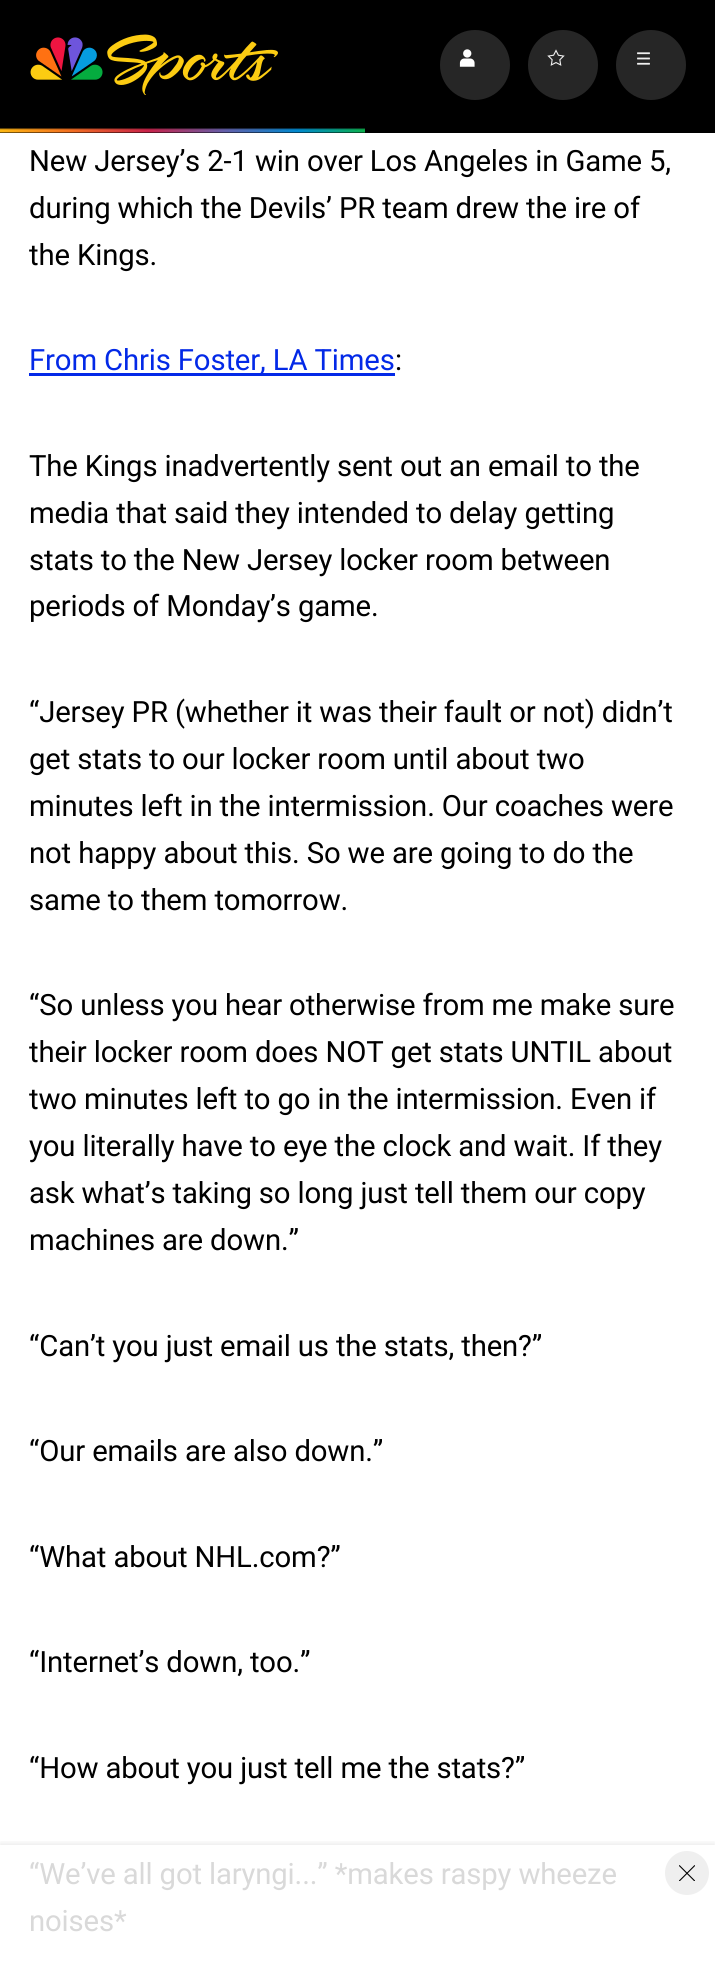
import math
import cairo


def write_spaced(ctx, x, y, s, letter, word):
	ctx.move_to(x, y)
	for ch in s:
		ctx.show_text(ch)
		ctx.rel_move_to(letter + word * (ch == ' '), 0)

def round_path(ctx, x, y, w, h, r):
	ctx.new_sub_path()
	for i, (u, v) in enumerate([(x + w - r, y + h - r), (x + r, y + h - r), (x + r, y + r), (x + w - r, y + r)]):
		ctx.arc(u, v, r, i * math.pi / 2, (i + 1) * math.pi / 2)
	ctx.close_path()

def blur_box(ctx, x, y, w, h, r, blur, alpha):
	ctx.push_group_with_content(cairo.CONTENT_ALPHA)
	ctx.set_operator(cairo.OPERATOR_SOURCE)
	for i in range(15, -16, -2):
		e = blur * i / 6
		if min(w, h) + 2 * e > 0:
			ctx.set_source_rgba(0, 0, 0, alpha * math.erfc((i - 1) / 8.5) / 2)
			round_path(ctx, x - e, y - e, w + 2 * e, h + 2 * e, max(0, min(r + e + blur * .6, min(w, h) / 2 + e)))
			ctx.fill()
	ctx.mask(ctx.pop_group())

def paste(ctx, path, x, y, w, h):
	ctx.save()
	ctx.set_source_surface(cairo.ImageSurface.create_from_png(path), x, y)
	ctx.rectangle(x, y, w, h)
	ctx.fill()
	ctx.restore()

def draw(ctx):
	ctx.set_source_rgb(1, 1, 1)
	ctx.paint()
	ctx.set_source_rgb(0, 0, 0)
	ctx.rectangle(0, 0, 715, 133)
	ctx.fill()
	paste(ctx, 'media/1.png', 30, 34, 248, 61)
	ctx.set_source_rgb(0.149, 0.149, 0.149)
	ctx.arc(475, 65, 35, 0, 2 * math.pi)
	ctx.fill()
	paste(ctx, 'media/2.png', 459, 49, 16, 18)
	ctx.arc(563, 65, 35, 0, 2 * math.pi)
	ctx.fill()
	paste(ctx, 'media/3.png', 547, 49, 18, 17)
	ctx.arc(651, 65, 35, 0, 2 * math.pi)
	ctx.fill()
	paste(ctx, 'media/4.png', 637, 52, 13, 13)
	paste(ctx, 'media/5.png', 0, 128, 365, 5)
	ctx.select_font_face('Roboto')
	ctx.set_font_size(29.3)
	ctx.set_source_rgb(0, 0, 0)
	for x, y, s in [
		(29, 171, 'New Jersey’s 2-1 win over Los Angeles in Game 5,'),
		(29, 218, 'during which the Devils’ PR team drew the ire of'),
		(29, 265, 'the Kings.'),
	]:
		write_spaced(ctx, x, y, s, -0.15, 0)
	ctx.set_source_rgb(0.012, 0.161, 0.906)
	ctx.rectangle(29, 373, 366, 3)
	ctx.fill()
	write_spaced(ctx, 29, 370, 'From Chris Foster, LA Times', -0.15, 0)
	ctx.set_source_rgb(0, 0, 0)
	for x, y, s in [
		(395, 370, ':'),
		(29, 476, 'The Kings inadvertently sent out an email to the'),
		(29, 523, 'media that said they intended to delay getting'),
		(29, 570, 'stats to the New Jersey locker room between'),
		(29, 616, 'periods of Monday’s game.'),
		(29, 722, '“Jersey PR (whether it was their fault or not) didn’t'),
		(29, 769, 'get stats to our locker room until about two'),
		(29, 816, 'minutes left in the intermission. Our coaches were'),
		(29, 863, 'not happy about this. So we are going to do the'),
		(29, 910, 'same to them tomorrow.'),
		(29, 1015, '“So unless you hear otherwise from me make sure'),
		(29, 1062, 'their locker room does NOT get stats UNTIL about'),
		(29, 1109, 'two minutes left to go in the intermission. Even if'),
		(29, 1156, 'you literally have to eye the clock and wait. If they'),
		(29, 1203, 'ask what’s taking so long just tell them our copy'),
		(29, 1250, 'machines are down.”'),
		(29, 1356, '“Can’t you just email us the stats, then?”'),
		(29, 1461, '“Our emails are also down.”'),
		(29, 1567, '“What about NHL.com?”'),
		(29, 1672, '“Internet’s down, too.”'),
		(29, 1778, '“How about you just tell me the stats?”'),
	]:
		write_spaced(ctx, x, y, s, -0.15, 0)
	ctx.set_source_rgb(0.851, 0.851, 0.851)
	write_spaced(ctx, 29, 1884, '“We’ve all got laryngi...” *makes raspy wheeze', -0.15, 0)
	write_spaced(ctx, 29, 1931, 'noises*', -0.15, 0)
	ctx.save()
	ctx.rectangle(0, 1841, 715, 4)
	ctx.clip()
	ctx.set_source_rgb(0, 0, 0)
	blur_box(ctx, 0, 1843, 715, 125, 0, 2.5, 0.08)
	ctx.restore()
	ctx.set_source_rgb(0.937, 0.937, 0.937)
	ctx.arc(687, 1873, 22, 0, 2 * math.pi)
	ctx.fill()
	paste(ctx, 'media/6.png', 679, 1865, 16, 16)


surface = cairo.ImageSurface(cairo.FORMAT_RGB24, 715, 1970)
ctx = cairo.Context(surface)
options = cairo.FontOptions()
options.set_hint_metrics(cairo.HINT_METRICS_OFF)
options.set_hint_style(cairo.HINT_STYLE_NONE)
ctx.set_font_options(options)
ctx.set_miter_limit(4)
draw(ctx)
surface.write_to_png('image.png')
